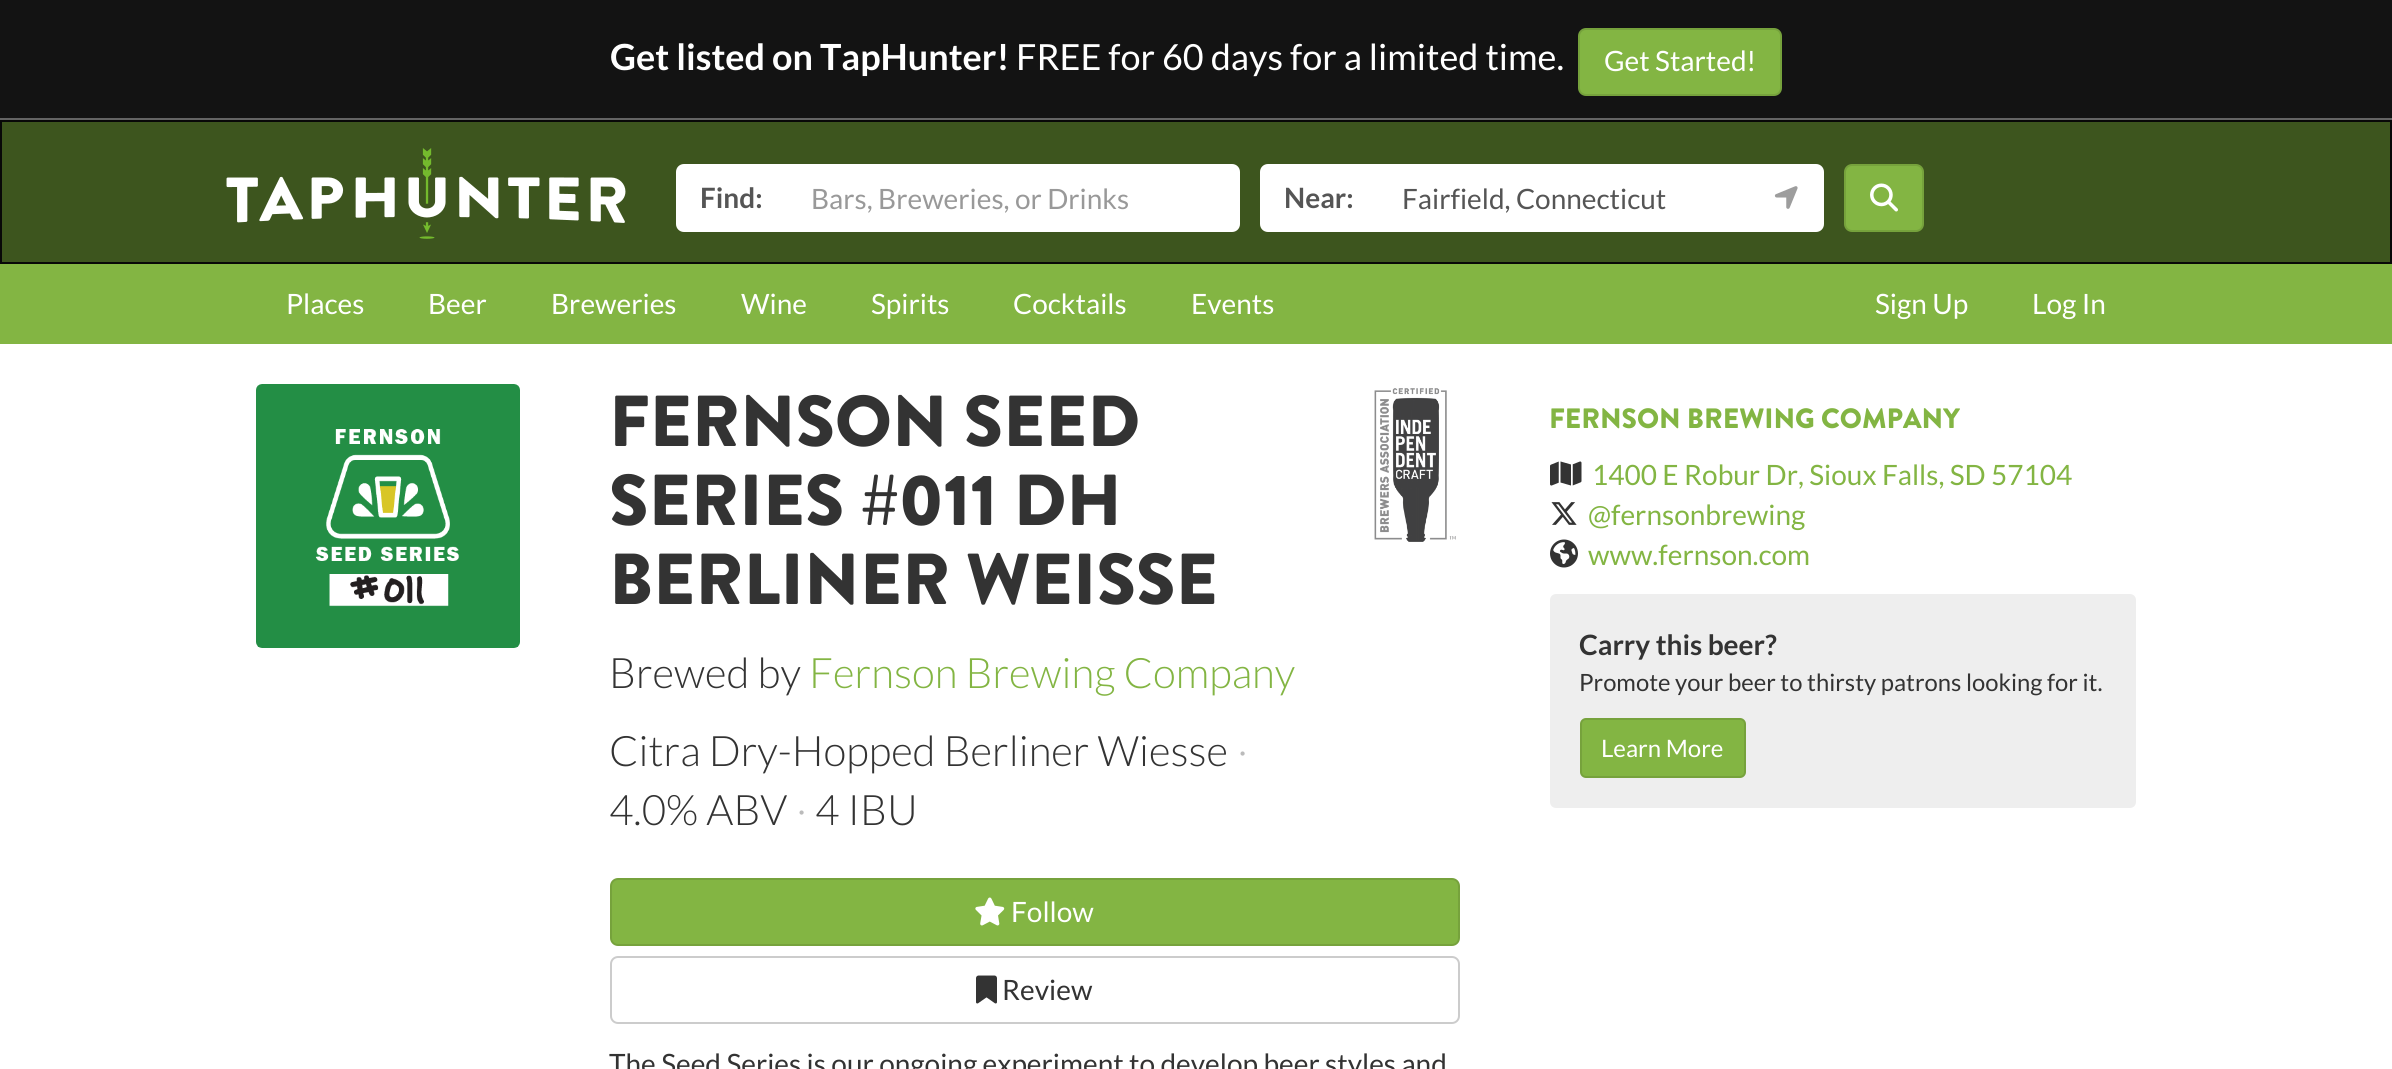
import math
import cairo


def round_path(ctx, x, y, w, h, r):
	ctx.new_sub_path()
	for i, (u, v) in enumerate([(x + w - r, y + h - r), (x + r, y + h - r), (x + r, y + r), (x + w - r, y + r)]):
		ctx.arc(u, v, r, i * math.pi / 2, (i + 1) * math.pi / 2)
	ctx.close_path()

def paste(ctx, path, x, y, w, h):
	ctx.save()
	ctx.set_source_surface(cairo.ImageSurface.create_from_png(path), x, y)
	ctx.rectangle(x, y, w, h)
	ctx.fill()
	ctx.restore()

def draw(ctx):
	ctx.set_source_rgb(1, 1, 1)
	ctx.paint()
	ctx.set_source_rgb(0.075, 0.075, 0.075)
	ctx.rectangle(0, 0, 2392, 118)
	ctx.fill()
	ctx.set_source_rgb(0.392, 0.392, 0.392)
	ctx.rectangle(0, 118, 2392, 2)
	ctx.fill()
	ctx.select_font_face('Lato', cairo.FONT_SLANT_NORMAL, cairo.FONT_WEIGHT_BOLD)
	ctx.set_font_size(36)
	ctx.set_source_rgb(1, 1, 1)
	ctx.move_to(610, 70)
	ctx.show_text('Get listed on TapHunter!')
	ctx.select_font_face('Lato')
	ctx.move_to(1016, 70)
	ctx.show_text('FREE for 60 days for a limited time.')
	ctx.set_source_rgb(0.514, 0.71, 0.263)
	round_path(ctx, 1579, 29, 202, 66, 7)
	ctx.fill_preserve()
	ctx.set_source_rgb(0.463, 0.635, 0.235)
	ctx.stroke()
	ctx.set_font_size(28)
	ctx.set_source_rgb(1, 1, 1)
	ctx.move_to(1604, 71)
	ctx.show_text('Get Started!')
	ctx.set_source_rgb(0.239, 0.333, 0.118)
	ctx.rectangle(1, 121, 2390, 142)
	ctx.fill_preserve()
	ctx.set_source_rgb(0.035, 0.035, 0.035)
	ctx.stroke()
	paste(ctx, 'media/1.png', 226, 148, 400, 91)
	ctx.set_source_rgb(1, 1, 1)
	ctx.new_path()
	ctx.move_to(684, 164)
	ctx.line_to(786, 164)
	ctx.line_to(786, 232)
	ctx.line_to(684, 232)
	ctx.curve_to(679.5, 232, 676, 228.5, 676, 224)
	ctx.line_to(676, 172)
	ctx.curve_to(676, 167.5, 679.5, 164, 684, 164)
	ctx.close_path()
	ctx.fill()
	ctx.select_font_face('Lato', cairo.FONT_SLANT_NORMAL, cairo.FONT_WEIGHT_BOLD)
	ctx.set_source_rgb(0.333, 0.333, 0.333)
	ctx.move_to(700, 208)
	ctx.show_text('Find:')
	ctx.set_source_rgb(1, 1, 1)
	ctx.new_path()
	ctx.move_to(786, 164)
	ctx.line_to(1232, 164)
	ctx.curve_to(1236.5, 164, 1240, 167.5, 1240, 172)
	ctx.line_to(1240, 224)
	ctx.curve_to(1240, 228.5, 1236.5, 232, 1232, 232)
	ctx.line_to(786, 232)
	ctx.close_path()
	ctx.fill()
	ctx.select_font_face('Lato')
	ctx.set_source_rgb(0.6, 0.6, 0.6)
	ctx.move_to(811, 209)
	ctx.show_text('Bars, Breweries, or Drinks')
	ctx.set_source_rgb(1, 1, 1)
	ctx.new_path()
	ctx.move_to(1268, 164)
	ctx.line_to(1378, 164)
	ctx.line_to(1378, 232)
	ctx.line_to(1268, 232)
	ctx.curve_to(1263.5, 232, 1260, 228.5, 1260, 224)
	ctx.line_to(1260, 172)
	ctx.curve_to(1260, 167.5, 1263.5, 164, 1268, 164)
	ctx.close_path()
	ctx.fill()
	ctx.select_font_face('Lato', cairo.FONT_SLANT_NORMAL, cairo.FONT_WEIGHT_BOLD)
	ctx.set_source_rgb(0.333, 0.333, 0.333)
	ctx.move_to(1284, 208)
	ctx.show_text('Near:')
	ctx.set_source_rgb(1, 1, 1)
	ctx.rectangle(1378, 164, 370, 68)
	ctx.fill()
	ctx.select_font_face('Lato')
	ctx.set_source_rgb(0.333, 0.333, 0.333)
	ctx.move_to(1402, 209)
	ctx.show_text('Fairfield, Connecticut')
	ctx.set_source_rgb(1, 1, 1)
	ctx.new_path()
	ctx.move_to(1748, 164)
	ctx.line_to(1816, 164)
	ctx.curve_to(1820.5, 164, 1824, 167.5, 1824, 172)
	ctx.line_to(1824, 224)
	ctx.curve_to(1824, 228.5, 1820.5, 232, 1816, 232)
	ctx.line_to(1748, 232)
	ctx.close_path()
	ctx.fill()
	paste(ctx, 'media/2.png', 1774, 186, 24, 23)
	ctx.set_source_rgb(0.514, 0.71, 0.263)
	round_path(ctx, 1845, 165, 78, 66, 7)
	ctx.fill_preserve()
	ctx.set_source_rgb(0.463, 0.635, 0.235)
	ctx.stroke()
	paste(ctx, 'media/3.png', 1870, 183, 28, 29)
	ctx.set_source_rgb(0.514, 0.71, 0.263)
	ctx.rectangle(0, 264, 2392, 80)
	ctx.fill()
	ctx.set_source_rgb(1, 1, 1)
	for x, y, s in [
		(286, 314, 'Places'),
		(428, 314, 'Beer'),
		(551, 314, 'Breweries'),
		(741, 314, 'Wine'),
		(871, 314, 'Spirits'),
		(1013, 314, 'Cocktails'),
		(1191, 314, 'Events'),
		(1875, 314, 'Sign Up'),
		(2032, 314, 'Log In'),
	]:
		ctx.move_to(x, y)
		ctx.show_text(s)
	paste(ctx, 'media/4.png', 256, 384, 264, 264)
	ctx.select_font_face('Brandon Grotesque Black')
	ctx.set_font_size(72)
	ctx.set_source_rgb(0.2, 0.2, 0.2)
	for x, y, s in [
		(609, 446, 'FERNSON SEED'),
		(609, 525, 'SERIES #011 DH'),
		(609, 604, 'BERLINER WEISSE'),
	]:
		ctx.move_to(x, y)
		ctx.show_text(s)
	ctx.select_font_face('Lato Light')
	ctx.set_font_size(42)
	ctx.move_to(609, 688)
	ctx.show_text('Brewed by')
	ctx.set_source_rgb(0.514, 0.71, 0.263)
	ctx.move_to(809, 688)
	ctx.show_text('Fernson Brewing Company')
	ctx.set_source_rgb(0.2, 0.2, 0.2)
	ctx.move_to(609, 766)
	ctx.show_text('Citra Dry-Hopped Berliner Wiesse')
	ctx.set_source_rgb(0.733, 0.733, 0.733)
	ctx.move_to(1237, 766)
	ctx.show_text('·')
	ctx.set_source_rgb(0.2, 0.2, 0.2)
	ctx.move_to(609, 825)
	ctx.show_text('4.0% ABV')
	ctx.set_source_rgb(0.733, 0.733, 0.733)
	ctx.move_to(796, 825)
	ctx.show_text('·')
	ctx.set_source_rgb(0.2, 0.2, 0.2)
	ctx.move_to(815, 825)
	ctx.show_text('4 IBU')
	paste(ctx, 'media/5.png', 1374, 388, 82, 154)
	ctx.set_source_rgb(0.514, 0.71, 0.263)
	round_path(ctx, 611, 879, 848, 66, 7)
	ctx.fill_preserve()
	ctx.set_source_rgb(0.463, 0.635, 0.235)
	ctx.stroke()
	paste(ctx, 'media/6.png', 975, 897, 30, 29)
	ctx.select_font_face('Lato')
	ctx.set_font_size(28)
	ctx.set_source_rgb(1, 1, 1)
	ctx.move_to(1011, 922)
	ctx.show_text('Follow')
	round_path(ctx, 611, 957, 848, 66, 7)
	ctx.set_source_rgb(0.8, 0.8, 0.8)
	ctx.stroke()
	paste(ctx, 'media/7.png', 976, 975, 21, 29)
	ctx.set_source_rgb(0.2, 0.2, 0.2)
	ctx.move_to(1002, 1000)
	ctx.show_text('Review')
	ctx.move_to(609, 1074)
	ctx.show_text('The Seed Series is our ongoing experiment to develop beer styles and')
	ctx.select_font_face('Brandon Grotesque Black')
	ctx.set_source_rgb(0.514, 0.71, 0.263)
	ctx.move_to(1549, 428)
	ctx.show_text('FERNSON BREWING COMPANY')
	paste(ctx, 'media/8.png', 1550, 461, 32, 25)
	ctx.select_font_face('Lato')
	ctx.move_to(1592, 485)
	ctx.show_text('1400 E Robur Dr, Sioux Falls, SD 57104')
	paste(ctx, 'media/9.png', 1551, 502, 26, 23)
	ctx.move_to(1588, 525)
	ctx.show_text('@fernsonbrewing')
	paste(ctx, 'media/10.png', 1550, 539, 28, 29)
	ctx.move_to(1588, 565)
	ctx.show_text('www.fernson.com')
	ctx.set_source_rgb(0.933, 0.933, 0.933)
	round_path(ctx, 1550, 594, 586, 214, 6)
	ctx.fill()
	ctx.select_font_face('Lato', cairo.FONT_SLANT_NORMAL, cairo.FONT_WEIGHT_BOLD)
	ctx.set_source_rgb(0.2, 0.2, 0.2)
	ctx.move_to(1579, 655)
	ctx.show_text('Carry this beer?')
	ctx.select_font_face('Lato')
	ctx.set_font_size(23.8)
	ctx.move_to(1579, 691)
	ctx.show_text('Promote your beer to thirsty patrons looking for it.')
	ctx.set_source_rgb(0.514, 0.71, 0.263)
	round_path(ctx, 1581, 719, 164, 58, 5)
	ctx.fill_preserve()
	ctx.set_source_rgb(0.463, 0.635, 0.235)
	ctx.stroke()
	ctx.set_font_size(24)
	ctx.set_source_rgb(1, 1, 1)
	ctx.move_to(1601, 757)
	ctx.show_text('Learn More')


surface = cairo.ImageSurface(cairo.FORMAT_RGB24, 2392, 1069)
ctx = cairo.Context(surface)
options = cairo.FontOptions()
options.set_hint_metrics(cairo.HINT_METRICS_OFF)
options.set_hint_style(cairo.HINT_STYLE_NONE)
ctx.set_font_options(options)
ctx.set_miter_limit(4)
draw(ctx)
surface.write_to_png('image.png')
